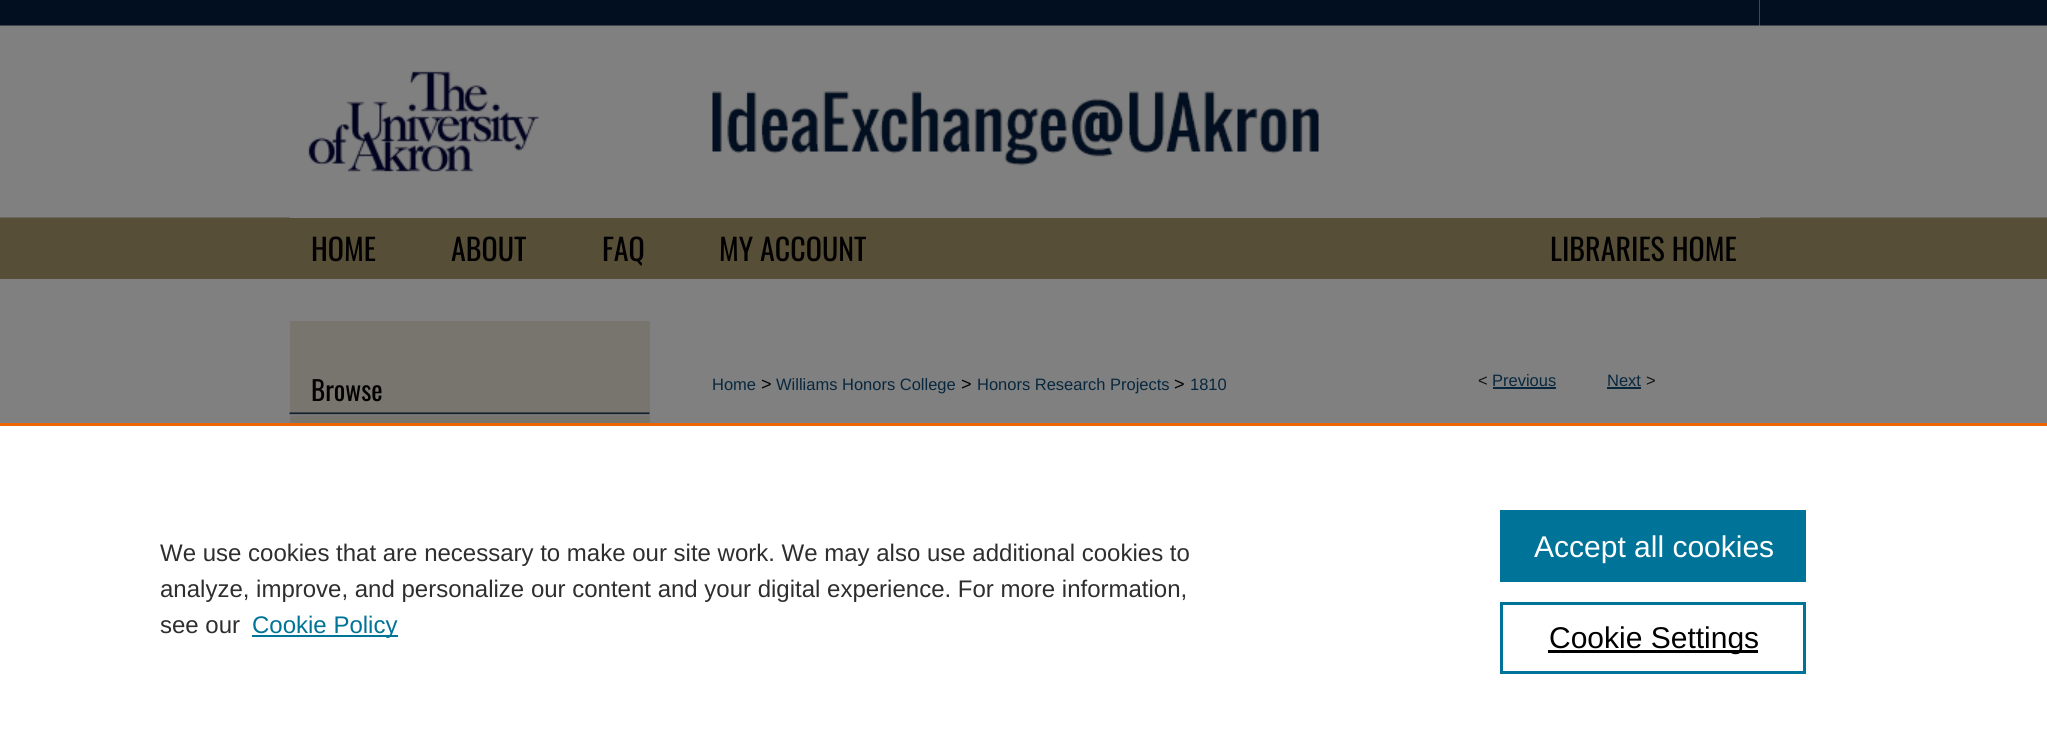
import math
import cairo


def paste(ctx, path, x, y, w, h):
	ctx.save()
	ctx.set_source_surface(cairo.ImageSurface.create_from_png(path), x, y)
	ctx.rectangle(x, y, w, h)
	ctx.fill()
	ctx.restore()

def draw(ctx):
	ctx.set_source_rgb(0.502, 0.502, 0.502)
	ctx.paint()
	paste(ctx, 'media/1.png', 0, 0, 2047, 279)
	ctx.set_source_rgb(0.502, 0.502, 0.502)
	ctx.rectangle(290, 0, 1470, 218)
	ctx.fill()
	paste(ctx, 'media/2.png', 289, 0, 1471, 218)
	paste(ctx, 'media/3.png', 289, 71, 250, 147)
	ctx.select_font_face('Oswald')
	ctx.set_font_size(30)
	ctx.set_source_rgb(0, 0, 0)
	for x, y, s in [
		(311, 261, 'HOME'),
		(451, 261, 'ABOUT'),
		(602, 261, 'FAQ'),
		(719, 261, 'MY ACCOUNT'),
		(1550, 261, 'LIBRARIES HOME'),
	]:
		ctx.move_to(x, y)
		ctx.show_text(s)
	ctx.set_source_rgb(0.471, 0.459, 0.431)
	ctx.rectangle(290, 321, 360, 102)
	ctx.fill()
	paste(ctx, 'media/4.png', 289, 412, 361, 4)
	ctx.set_font_size(27)
	ctx.set_source_rgb(0, 0, 0)
	ctx.move_to(311, 401)
	ctx.show_text('Browse')
	ctx.select_font_face('Liberation Sans')
	ctx.set_font_size(16.5)
	ctx.set_source_rgb(0.031, 0.153, 0.243)
	ctx.move_to(712, 390)
	ctx.show_text('Home')
	ctx.set_font_size(18)
	ctx.set_source_rgb(0, 0, 0)
	ctx.move_to(761, 390)
	ctx.show_text('>')
	ctx.set_font_size(16.5)
	ctx.set_source_rgb(0.031, 0.153, 0.243)
	ctx.move_to(776, 390)
	ctx.show_text('Williams Honors College')
	ctx.set_font_size(18)
	ctx.set_source_rgb(0, 0, 0)
	ctx.move_to(961, 390)
	ctx.show_text('>')
	ctx.set_font_size(16.5)
	ctx.set_source_rgb(0.031, 0.153, 0.243)
	ctx.move_to(977, 390)
	ctx.show_text('Honors Research Projects')
	ctx.set_font_size(18)
	ctx.set_source_rgb(0, 0, 0)
	ctx.move_to(1174, 390)
	ctx.show_text('>')
	ctx.set_font_size(16.5)
	ctx.set_source_rgb(0.031, 0.153, 0.243)
	ctx.move_to(1190, 390)
	ctx.show_text('1810')
	ctx.set_source_rgb(0.067, 0.067, 0.067)
	ctx.move_to(1478, 386)
	ctx.show_text('<')
	ctx.set_source_rgb(0.031, 0.153, 0.243)
	ctx.move_to(1492, 386)
	ctx.show_text('Previous')
	ctx.rectangle(1493, 387, 63, 2)
	ctx.fill()
	ctx.move_to(1607, 386)
	ctx.show_text('Next')
	ctx.rectangle(1607, 387, 34, 2)
	ctx.fill()
	ctx.set_source_rgb(0.067, 0.067, 0.067)
	ctx.move_to(1646, 386)
	ctx.show_text('>')
	ctx.set_source_rgb(1, 1, 1)
	ctx.rectangle(0, 426, 2047, 327)
	ctx.fill()
	ctx.set_source_rgb(0.922, 0.396, 0)
	ctx.rectangle(0, 423, 2047, 3)
	ctx.fill()
	ctx.set_font_size(24)
	ctx.set_source_rgb(0.18, 0.18, 0.18)
	for x, y, s in [
		(160, 561, 'We use cookies that are necessary to make our site work. We may also use additional cookies to'),
		(160, 597, 'analyze, improve, and personalize our content and your digital experience. For more information,'),
		(160, 633, 'see our'),
	]:
		ctx.move_to(x, y)
		ctx.show_text(s)
	ctx.set_source_rgb(0, 0.451, 0.596)
	ctx.rectangle(252, 635, 146, 2)
	ctx.fill()
	ctx.move_to(252, 633)
	ctx.show_text('Cookie Policy')
	ctx.rectangle(1500, 510, 306, 72)
	ctx.fill()
	ctx.set_font_size(30)
	ctx.set_source_rgb(1, 1, 1)
	ctx.move_to(1534, 557)
	ctx.show_text('Accept all cookies')
	ctx.rectangle(1501.5, 603.5, 303, 69)
	ctx.set_source_rgb(0, 0.451, 0.596)
	ctx.set_line_width(3)
	ctx.stroke()
	ctx.set_source_rgb(0, 0, 0)
	ctx.rectangle(1548, 650, 210, 3)
	ctx.fill()
	ctx.move_to(1549, 648)
	ctx.show_text('Cookie Settings')


surface = cairo.ImageSurface(cairo.FORMAT_RGB24, 2047, 753)
ctx = cairo.Context(surface)
options = cairo.FontOptions()
options.set_hint_metrics(cairo.HINT_METRICS_OFF)
options.set_hint_style(cairo.HINT_STYLE_NONE)
ctx.set_font_options(options)
ctx.set_miter_limit(4)
draw(ctx)
surface.write_to_png('image.png')
